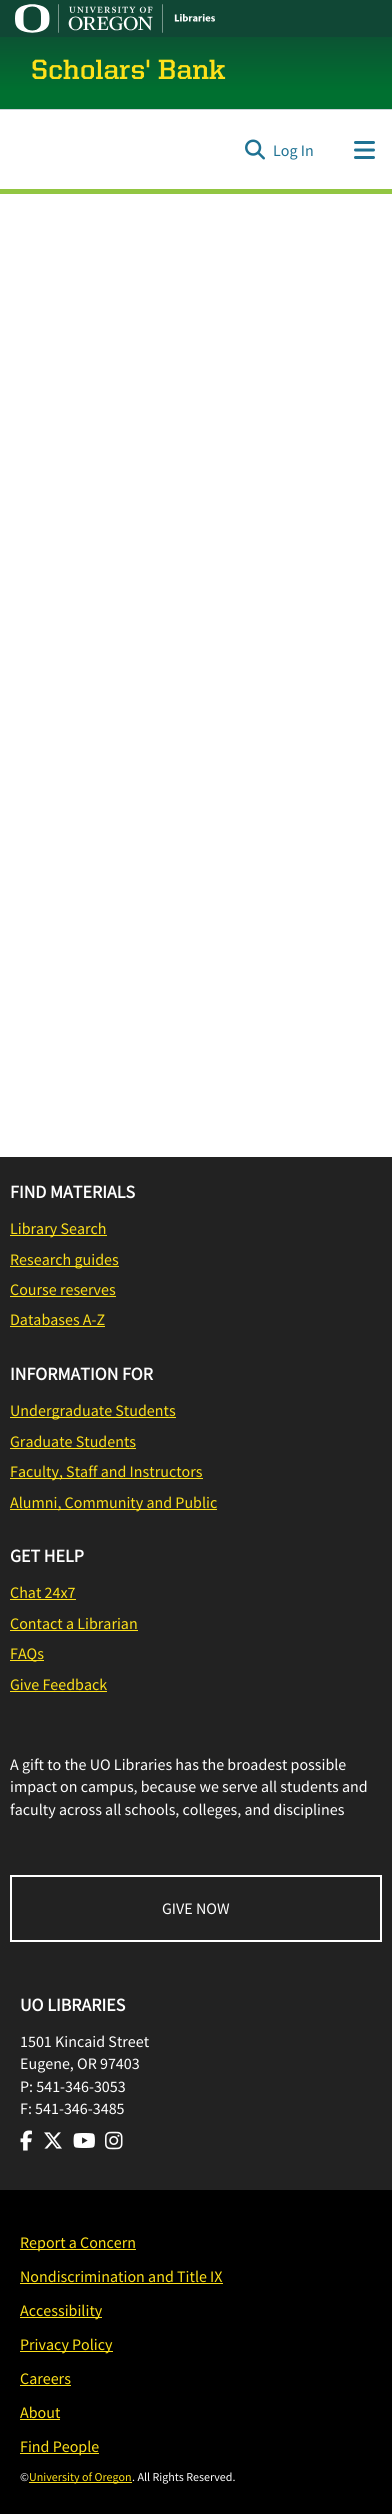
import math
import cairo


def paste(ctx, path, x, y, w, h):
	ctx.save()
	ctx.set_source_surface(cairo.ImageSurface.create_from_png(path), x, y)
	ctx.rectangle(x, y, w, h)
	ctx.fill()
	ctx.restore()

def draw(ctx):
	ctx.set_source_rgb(1, 1, 1)
	ctx.paint()
	ctx.set_source_rgb(0.573, 0.776, 0.259)
	ctx.rectangle(0, 189, 392, 5)
	ctx.fill()
	ctx.set_source_rgb(0.063, 0.278, 0.208)
	ctx.rectangle(0, 0, 392, 37)
	ctx.fill()
	paste(ctx, 'media/1.png', 15, 4, 200, 29)
	gradient = cairo.LinearGradient(196, 109, 196, 12)
	gradient.add_color_stop_rgba(0.19, 0, 0.439, 0.188, 1)
	gradient.add_color_stop_rgba(1, 0.063, 0.278, 0.208, 1)
	ctx.set_source(gradient)
	ctx.rectangle(0, 37, 392, 72)
	ctx.fill()
	ctx.select_font_face('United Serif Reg', cairo.FONT_SLANT_NORMAL, cairo.FONT_WEIGHT_BOLD)
	ctx.set_font_size(28)
	ctx.set_source_rgb(0.996, 0.882, 0.102)
	ctx.move_to(31, 79)
	ctx.show_text('Scholars\' Bank')
	ctx.set_source_rgb(0.808, 0.831, 0.855)
	ctx.rectangle(0, 109, 392, 1)
	ctx.fill()
	paste(ctx, 'media/2.png', 245, 139, 20, 21)
	ctx.select_font_face('Source Sans Pro')
	ctx.set_font_size(16)
	ctx.set_source_rgb(0.122, 0.447, 0.576)
	ctx.move_to(273, 156)
	ctx.show_text('Log In')
	paste(ctx, 'media/3.png', 354, 141, 21, 18)
	ctx.set_source_rgb(0.133, 0.133, 0.133)
	ctx.rectangle(0, 1157, 392, 1033)
	ctx.fill()
	ctx.select_font_face('Source Sans Pro', cairo.FONT_SLANT_NORMAL, cairo.FONT_WEIGHT_BOLD)
	ctx.set_font_size(18)
	ctx.set_source_rgb(1, 1, 1)
	ctx.move_to(10, 1198)
	ctx.show_text('FIND MATERIALS')
	ctx.set_source_rgb(0.996, 0.882, 0.102)
	ctx.rectangle(10, 1235, 97, 1)
	ctx.fill()
	ctx.select_font_face('Source Sans Pro')
	ctx.set_font_size(16)
	ctx.move_to(10, 1234)
	ctx.show_text('Library Search')
	ctx.rectangle(10, 1266, 109, 1)
	ctx.fill()
	ctx.move_to(10, 1265)
	ctx.show_text('Research guides')
	ctx.move_to(10, 1295)
	ctx.show_text('Course reserves')
	ctx.rectangle(10, 1296, 106, 1)
	ctx.fill()
	ctx.move_to(10, 1325)
	ctx.show_text('Databases A-Z')
	ctx.rectangle(10, 1326, 95, 1)
	ctx.fill()
	ctx.select_font_face('Source Sans Pro', cairo.FONT_SLANT_NORMAL, cairo.FONT_WEIGHT_BOLD)
	ctx.set_font_size(18)
	ctx.set_source_rgb(1, 1, 1)
	ctx.move_to(10, 1380)
	ctx.show_text('INFORMATION FOR')
	ctx.set_source_rgb(0.996, 0.882, 0.102)
	ctx.rectangle(10, 1417, 166, 1)
	ctx.fill()
	ctx.select_font_face('Source Sans Pro')
	ctx.set_font_size(16)
	ctx.move_to(10, 1416)
	ctx.show_text('Undergraduate Students')
	ctx.move_to(10, 1447)
	ctx.show_text('Graduate Students')
	ctx.rectangle(10, 1448, 126, 1)
	ctx.fill()
	ctx.rectangle(10, 1478, 193, 1)
	ctx.fill()
	ctx.move_to(10, 1477)
	ctx.show_text('Faculty, Staff and Instructors')
	ctx.rectangle(10, 1509, 207, 1)
	ctx.fill()
	ctx.move_to(10, 1508)
	ctx.show_text('Alumni, Community and Public')
	ctx.select_font_face('Source Sans Pro', cairo.FONT_SLANT_NORMAL, cairo.FONT_WEIGHT_BOLD)
	ctx.set_font_size(18)
	ctx.set_source_rgb(1, 1, 1)
	ctx.move_to(10, 1562)
	ctx.show_text('GET HELP')
	ctx.select_font_face('Source Sans Pro')
	ctx.set_font_size(16)
	ctx.set_source_rgb(0.996, 0.882, 0.102)
	ctx.move_to(10, 1598)
	ctx.show_text('Chat 24x7')
	ctx.rectangle(10, 1599, 66, 1)
	ctx.fill()
	ctx.move_to(10, 1629)
	ctx.show_text('Contact a Librarian')
	ctx.rectangle(10, 1630, 128, 1)
	ctx.fill()
	ctx.rectangle(10, 1660, 34, 1)
	ctx.fill()
	ctx.move_to(10, 1659)
	ctx.show_text('FAQs')
	ctx.move_to(10, 1690)
	ctx.show_text('Give Feedback')
	ctx.rectangle(10, 1691, 97, 1)
	ctx.fill()
	ctx.set_source_rgb(1, 1, 1)
	for x, y, s in [
		(10, 1770, 'A gift to the UO Libraries has the broadest possible'),
		(10, 1792, 'impact on campus, because we serve all students and'),
		(10, 1815, 'faculty across all schools, colleges, and disciplines'),
	]:
		ctx.move_to(x, y)
		ctx.show_text(s)
	ctx.rectangle(11, 1876, 370, 65)
	ctx.stroke()
	ctx.move_to(162, 1914)
	ctx.show_text('GIVE NOW')
	ctx.select_font_face('Source Sans Pro', cairo.FONT_SLANT_NORMAL, cairo.FONT_WEIGHT_BOLD)
	ctx.set_font_size(18)
	ctx.move_to(20, 2011)
	ctx.show_text('UO LIBRARIES')
	ctx.select_font_face('Source Sans Pro')
	ctx.set_font_size(16)
	for x, y, s in [
		(20, 2047, '1501 Kincaid Street'),
		(20, 2069, 'Eugene, OR 97403'),
		(20, 2092, 'P: 541-346-3053'),
		(20, 2114, 'F: 541-346-3485'),
	]:
		ctx.move_to(x, y)
		ctx.show_text(s)
	paste(ctx, 'media/4.png', 20, 2130, 12, 21)
	paste(ctx, 'media/5.png', 44, 2132, 18, 17)
	paste(ctx, 'media/6.png', 73, 2133, 22, 15)
	paste(ctx, 'media/7.png', 105, 2131, 18, 19)
	ctx.set_source_rgb(0, 0, 0)
	ctx.rectangle(0, 2190, 392, 324)
	ctx.fill()
	ctx.set_source_rgb(0.996, 0.882, 0.102)
	ctx.rectangle(20, 2249, 116, 1)
	ctx.fill()
	ctx.move_to(20, 2248)
	ctx.show_text('Report a Concern')
	ctx.move_to(20, 2282)
	ctx.show_text('Nondiscrimination and Title IX')
	ctx.rectangle(20, 2283, 203, 1)
	ctx.fill()
	ctx.rectangle(20, 2317, 82, 1)
	ctx.fill()
	ctx.move_to(20, 2316)
	ctx.show_text('Accessibility')
	ctx.rectangle(20, 2351, 93, 1)
	ctx.fill()
	ctx.move_to(20, 2350)
	ctx.show_text('Privacy Policy')
	ctx.move_to(20, 2384)
	ctx.show_text('Careers')
	ctx.rectangle(20, 2385, 51, 1)
	ctx.fill()
	ctx.move_to(20, 2418)
	ctx.show_text('About')
	ctx.rectangle(20, 2419, 40, 1)
	ctx.fill()
	ctx.rectangle(20, 2453, 79, 1)
	ctx.fill()
	ctx.move_to(20, 2452)
	ctx.show_text('Find People')
	ctx.set_font_size(12)
	ctx.set_source_rgb(1, 1, 1)
	ctx.move_to(20, 2481)
	ctx.show_text('©')
	ctx.set_source_rgb(0.996, 0.882, 0.102)
	ctx.rectangle(29, 2482, 103, 1)
	ctx.fill()
	ctx.move_to(29, 2481)
	ctx.show_text('University of Oregon')
	ctx.set_source_rgb(1, 1, 1)
	ctx.move_to(132, 2481)
	ctx.show_text('. All Rights Reserved.')


surface = cairo.ImageSurface(cairo.FORMAT_RGB24, 392, 2514)
ctx = cairo.Context(surface)
options = cairo.FontOptions()
options.set_hint_metrics(cairo.HINT_METRICS_OFF)
options.set_hint_style(cairo.HINT_STYLE_NONE)
ctx.set_font_options(options)
ctx.set_miter_limit(4)
draw(ctx)
surface.write_to_png('image.png')
